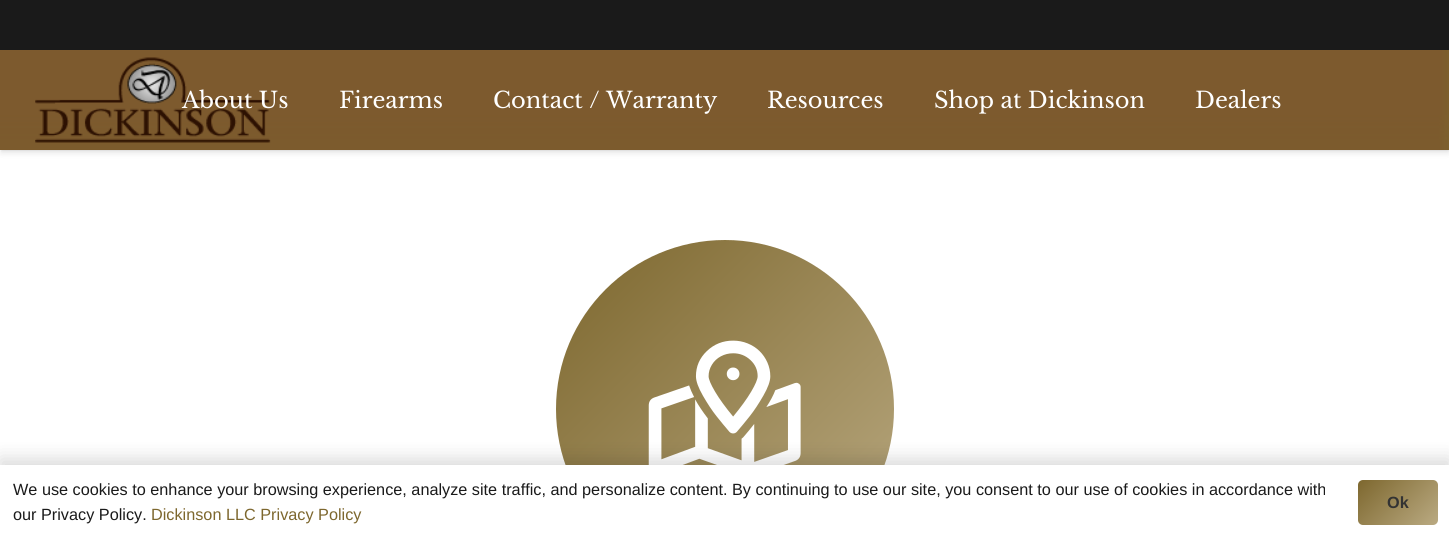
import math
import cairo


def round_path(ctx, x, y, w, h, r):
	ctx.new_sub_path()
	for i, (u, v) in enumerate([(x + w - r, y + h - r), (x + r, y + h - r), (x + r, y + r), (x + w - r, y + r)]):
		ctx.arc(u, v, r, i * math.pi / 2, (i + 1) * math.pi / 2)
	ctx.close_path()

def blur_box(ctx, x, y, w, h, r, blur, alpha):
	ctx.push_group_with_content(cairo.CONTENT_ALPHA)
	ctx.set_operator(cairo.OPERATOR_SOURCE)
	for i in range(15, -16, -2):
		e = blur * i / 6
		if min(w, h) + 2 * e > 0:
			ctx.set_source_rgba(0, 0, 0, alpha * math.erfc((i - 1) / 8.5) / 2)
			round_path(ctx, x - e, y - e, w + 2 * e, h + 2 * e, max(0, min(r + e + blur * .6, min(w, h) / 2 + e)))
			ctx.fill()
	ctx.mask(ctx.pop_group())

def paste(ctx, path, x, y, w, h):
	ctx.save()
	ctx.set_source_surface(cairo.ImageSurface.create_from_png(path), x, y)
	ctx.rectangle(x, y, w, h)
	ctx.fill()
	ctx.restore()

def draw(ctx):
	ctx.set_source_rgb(1, 1, 1)
	ctx.paint()
	ctx.set_source_rgb(0.102, 0.102, 0.102)
	ctx.rectangle(0, 0, 1449, 50)
	ctx.fill()
	ctx.set_source_rgb(0, 0, 0)
	blur_box(ctx, 1, 54, 1448, 97, 0, 0.5, 0.05)
	blur_box(ctx, 1, 55, 1448, 98, 0, 3, 0.1)
	ctx.set_source_rgb(0.49, 0.404, 0.18)
	ctx.rectangle(0, 50, 1449, 100)
	ctx.fill()
	paste(ctx, 'media/1.png', 0, 50, 1449, 100)
	paste(ctx, 'media/2.png', 35, 57, 236, 86)
	ctx.select_font_face('Libre Baskerville')
	ctx.set_font_size(22.5)
	ctx.set_source_rgb(1, 1, 1)
	for x, y, s in [
		(182, 108, 'About Us'),
		(339, 108, 'Firearms'),
		(493, 108, 'Contact / Warranty'),
		(767, 108, 'Resources'),
		(934, 108, 'Shop at Dickinson'),
		(1195, 108, 'Dealers'),
	]:
		ctx.move_to(x, y)
		ctx.show_text(s)
	gradient = cairo.LinearGradient(556, 240, 894, 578)
	gradient.add_color_stop_rgba(0, 0.49, 0.404, 0.18, 1)
	gradient.add_color_stop_rgba(1, 0.729, 0.667, 0.51, 1)
	ctx.set_source(gradient)
	ctx.new_path()
	ctx.arc(725, 409, 169, 0, 2 * math.pi)
	ctx.fill()
	paste(ctx, 'media/3.png', 648, 340, 153, 125)
	ctx.set_source_rgb(0, 0, 0)
	blur_box(ctx, 0, 459, 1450, 75, 0, 9.5, 0.15)
	ctx.set_source_rgb(1, 1, 1)
	ctx.rectangle(0, 465, 1449, 74)
	ctx.fill()
	ctx.select_font_face('Liberation Sans')
	ctx.set_font_size(16.25)
	ctx.set_source_rgb(0.102, 0.102, 0.102)
	ctx.move_to(13, 495)
	ctx.show_text('We use cookies to enhance your browsing experience, analyze site traffic, and personalize content. By continuing to use our site, you consent to our use of cookies in accordance with')
	ctx.move_to(13, 520)
	ctx.show_text('our Privacy Policy.')
	ctx.set_source_rgb(0.49, 0.404, 0.18)
	ctx.move_to(151, 520)
	ctx.show_text('Dickinson LLC Privacy Policy')
	gradient = cairo.LinearGradient(1366, 471, 1429, 534)
	gradient.add_color_stop_rgba(0, 0.49, 0.404, 0.18, 1)
	gradient.add_color_stop_rgba(1, 0.729, 0.667, 0.51, 1)
	ctx.set_source(gradient)
	round_path(ctx, 1358, 480, 80, 45, 5)
	ctx.fill()
	ctx.select_font_face('Liberation Sans', cairo.FONT_SLANT_NORMAL, cairo.FONT_WEIGHT_BOLD)
	ctx.set_source_rgb(0.2, 0.2, 0.2)
	ctx.move_to(1387, 508)
	ctx.show_text('Ok')


surface = cairo.ImageSurface(cairo.FORMAT_RGB24, 1449, 539)
ctx = cairo.Context(surface)
options = cairo.FontOptions()
options.set_hint_metrics(cairo.HINT_METRICS_OFF)
options.set_hint_style(cairo.HINT_STYLE_NONE)
ctx.set_font_options(options)
ctx.set_miter_limit(4)
draw(ctx)
surface.write_to_png('image.png')
